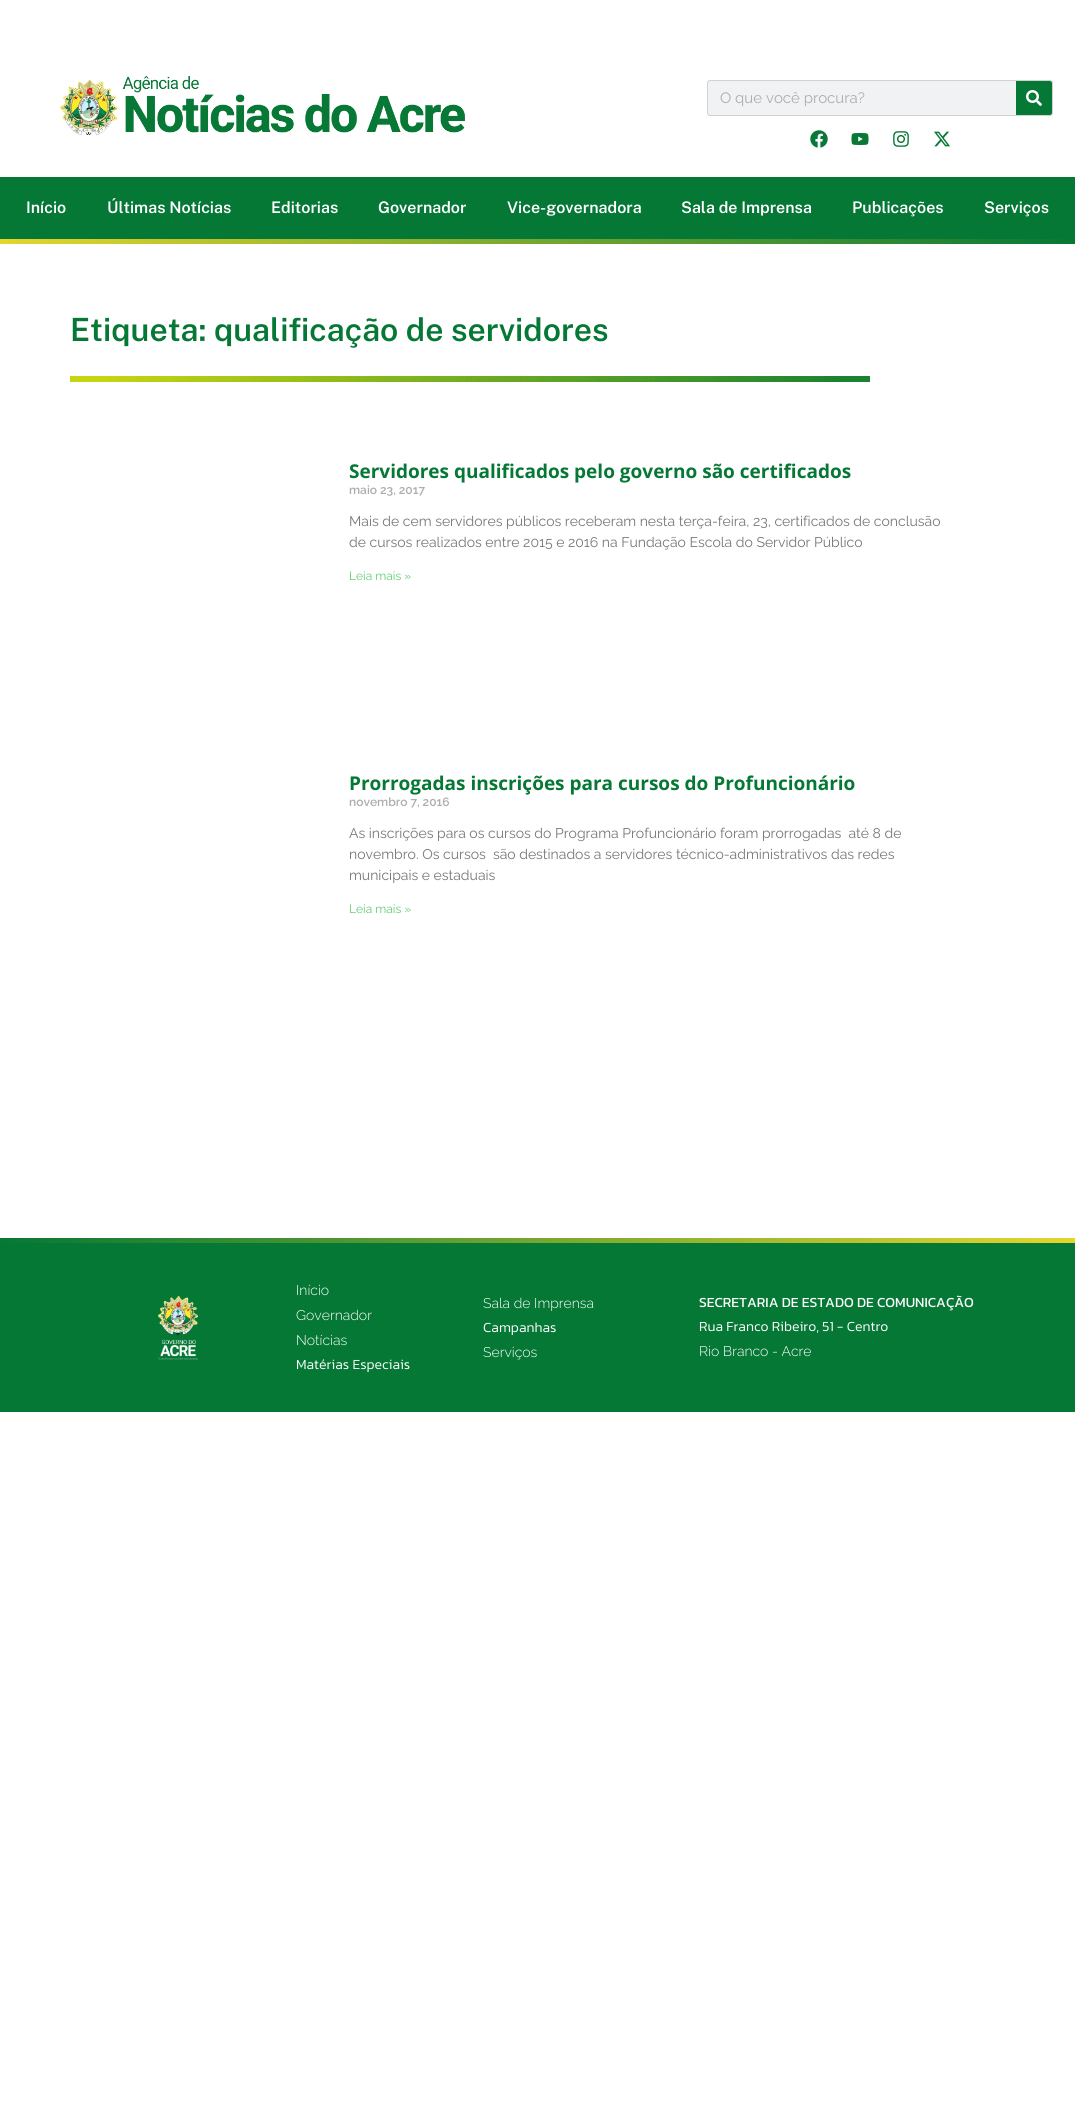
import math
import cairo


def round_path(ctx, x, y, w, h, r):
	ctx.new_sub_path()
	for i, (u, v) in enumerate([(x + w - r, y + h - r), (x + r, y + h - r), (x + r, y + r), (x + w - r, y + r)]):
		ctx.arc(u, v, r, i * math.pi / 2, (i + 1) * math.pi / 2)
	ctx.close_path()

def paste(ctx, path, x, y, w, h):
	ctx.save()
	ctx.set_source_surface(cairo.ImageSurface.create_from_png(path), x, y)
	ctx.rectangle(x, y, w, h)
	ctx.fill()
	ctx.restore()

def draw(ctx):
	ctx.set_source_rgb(1, 1, 1)
	ctx.paint()
	paste(ctx, 'media/1.png', 60, 76, 405, 59)
	ctx.set_source_rgb(0.945, 0.949, 0.953)
	round_path(ctx, 707.5, 80.5, 345, 35, 2.5)
	ctx.fill_preserve()
	ctx.set_source_rgb(0.82, 0.82, 0.82)
	ctx.set_line_width(1)
	ctx.stroke()
	ctx.select_font_face('Raleway')
	ctx.set_font_size(15)
	ctx.set_source_rgb(0.678, 0.678, 0.678)
	ctx.move_to(720, 103)
	ctx.show_text('O que você procura?')
	ctx.set_source_rgb(0.027, 0.471, 0.208)
	ctx.new_path()
	ctx.move_to(1016, 81)
	ctx.line_to(1050, 81)
	ctx.curve_to(1051, 81, 1052, 82, 1052, 83)
	ctx.line_to(1052, 113)
	ctx.curve_to(1052, 114, 1051, 115, 1050, 115)
	ctx.line_to(1016, 115)
	ctx.close_path()
	ctx.fill()
	paste(ctx, 'media/2.png', 1026, 90, 16, 16)
	paste(ctx, 'media/3.png', 810, 130, 18, 18)
	paste(ctx, 'media/4.png', 851, 133, 18, 12)
	paste(ctx, 'media/5.png', 893, 131, 16, 16)
	paste(ctx, 'media/6.png', 934, 131, 16, 16)
	ctx.rectangle(0, 177, 1075, 62)
	ctx.fill()
	ctx.select_font_face('Public Sans SemiBold')
	ctx.set_font_size(16)
	ctx.set_source_rgb(1, 1, 1)
	for x, y, s in [
		(26, 213, 'Início'),
		(107, 213, 'Últimas Notícias'),
		(271, 213, 'Editorias'),
		(378, 213, 'Governador'),
		(507, 213, 'Vice-governadora'),
		(681, 213, 'Sala de Imprensa'),
		(852, 213, 'Publicações'),
		(984, 213, 'Serviços'),
	]:
		ctx.move_to(x, y)
		ctx.show_text(s)
	gradient = cairo.LinearGradient(1075, 242, 0, 241)
	gradient.add_color_stop_rgba(0, 0.027, 0.471, 0.208, 1)
	gradient.add_color_stop_rgba(1, 0.898, 0.835, 0.173, 1)
	ctx.set_source(gradient)
	ctx.rectangle(0, 239, 1075, 5)
	ctx.fill()
	ctx.set_font_size(32)
	ctx.set_source_rgb(0.027, 0.471, 0.208)
	ctx.move_to(70, 341)
	ctx.show_text('Etiqueta: qualificação de servidores')
	paste(ctx, 'media/7.png', 70, 376, 800, 6)
	ctx.select_font_face('Open Sans', cairo.FONT_SLANT_NORMAL, cairo.FONT_WEIGHT_BOLD)
	ctx.set_font_size(19)
	ctx.move_to(349, 478)
	ctx.show_text('Servidores qualificados pelo governo são certificados')
	ctx.select_font_face('Raleway SemiBold')
	ctx.set_font_size(12)
	ctx.set_source_rgb(0.678, 0.678, 0.678)
	ctx.move_to(349, 494)
	ctx.show_text('maio 23, 2017')
	ctx.select_font_face('Raleway')
	ctx.set_font_size(14)
	ctx.set_source_rgb(0.467, 0.467, 0.467)
	ctx.move_to(349, 526)
	ctx.show_text('Mais de cem servidores públicos receberam nesta terça-feira, 23, certificados de conclusão')
	ctx.move_to(349, 547)
	ctx.show_text('de cursos realizados entre 2015 e 2016 na Fundação Escola do Servidor Público')
	ctx.set_font_size(12)
	ctx.set_source_rgb(0.38, 0.808, 0.439)
	ctx.move_to(349, 580)
	ctx.show_text('Leia mais »')
	ctx.select_font_face('Open Sans', cairo.FONT_SLANT_NORMAL, cairo.FONT_WEIGHT_BOLD)
	ctx.set_font_size(19)
	ctx.set_source_rgb(0.027, 0.471, 0.208)
	ctx.move_to(349, 790)
	ctx.show_text('Prorrogadas inscrições para cursos do Profuncionário')
	ctx.select_font_face('Raleway SemiBold')
	ctx.set_font_size(12)
	ctx.set_source_rgb(0.678, 0.678, 0.678)
	ctx.move_to(349, 806)
	ctx.show_text('novembro 7, 2016')
	ctx.select_font_face('Raleway')
	ctx.set_font_size(14)
	ctx.set_source_rgb(0.467, 0.467, 0.467)
	for x, y, s in [
		(349, 838, 'As inscrições para os cursos do Programa Profuncionário foram prorrogadas  até 8 de'),
		(349, 859, 'novembro. Os cursos  são destinados a servidores técnico-administrativos das redes'),
		(349, 880, 'municipais e estaduais'),
	]:
		ctx.move_to(x, y)
		ctx.show_text(s)
	ctx.set_font_size(12)
	ctx.set_source_rgb(0.38, 0.808, 0.439)
	ctx.move_to(349, 913)
	ctx.show_text('Leia mais »')
	gradient = cairo.LinearGradient(0, 1241, 1075, 1241)
	gradient.add_color_stop_rgba(0, 0.027, 0.471, 0.208, 1)
	gradient.add_color_stop_rgba(1, 0.898, 0.835, 0.173, 1)
	ctx.set_source(gradient)
	ctx.rectangle(0, 1238, 1075, 5)
	ctx.fill()
	ctx.set_source_rgb(0.027, 0.471, 0.208)
	ctx.rectangle(0, 1243, 1075, 169)
	ctx.fill()
	paste(ctx, 'media/8.png', 158, 1296, 40, 64)
	ctx.select_font_face('Raleway Light')
	ctx.set_font_size(14)
	ctx.set_source_rgb(1, 1, 1)
	for x, y, s in [
		(296, 1295, 'Início'),
		(296, 1320, 'Governador'),
		(296, 1345, 'Notícias'),
	]:
		ctx.move_to(x, y)
		ctx.show_text(s)
	ctx.select_font_face('Kanit Light')
	ctx.move_to(296, 1369)
	ctx.show_text('Matérias Especiais')
	ctx.select_font_face('Raleway Light')
	ctx.move_to(483, 1308)
	ctx.show_text('Sala de Imprensa')
	ctx.select_font_face('Kanit Light')
	ctx.move_to(483, 1332)
	ctx.show_text('Campanhas')
	ctx.select_font_face('Raleway Light')
	ctx.move_to(483, 1357)
	ctx.show_text('Serviços')
	ctx.select_font_face('Kanit')
	ctx.move_to(699, 1307)
	ctx.show_text('SECRETARIA DE ESTADO DE COMUNICAÇÃO')
	ctx.select_font_face('Kanit Light')
	ctx.move_to(699, 1331)
	ctx.show_text('Rua Franco Ribeiro, 51 - Centro')
	ctx.select_font_face('Raleway Light')
	ctx.move_to(699, 1356)
	ctx.show_text('Rio Branco - Acre')


surface = cairo.ImageSurface(cairo.FORMAT_RGB24, 1075, 2109)
ctx = cairo.Context(surface)
options = cairo.FontOptions()
options.set_hint_metrics(cairo.HINT_METRICS_OFF)
options.set_hint_style(cairo.HINT_STYLE_NONE)
ctx.set_font_options(options)
ctx.set_miter_limit(4)
draw(ctx)
surface.write_to_png('image.png')
